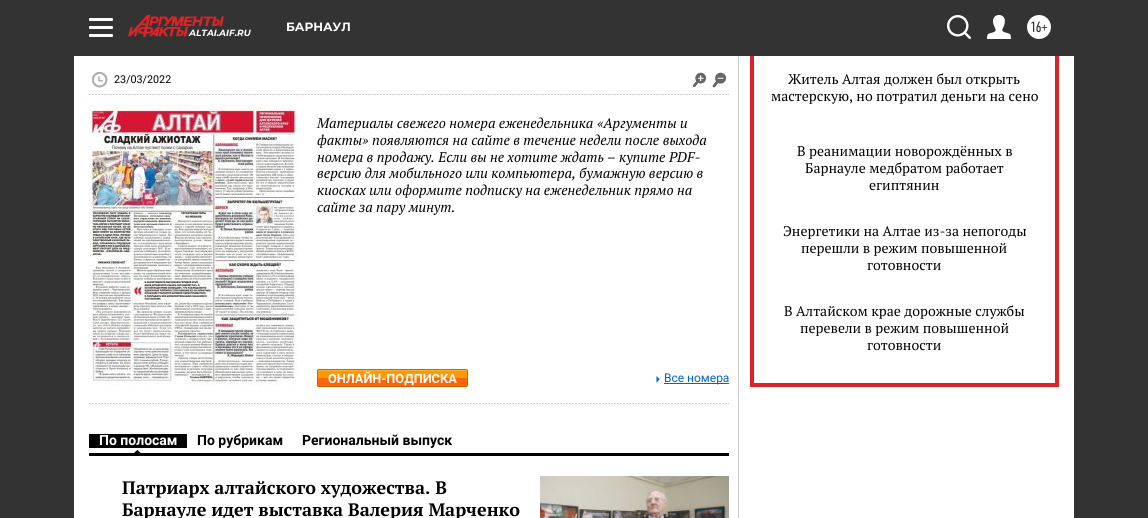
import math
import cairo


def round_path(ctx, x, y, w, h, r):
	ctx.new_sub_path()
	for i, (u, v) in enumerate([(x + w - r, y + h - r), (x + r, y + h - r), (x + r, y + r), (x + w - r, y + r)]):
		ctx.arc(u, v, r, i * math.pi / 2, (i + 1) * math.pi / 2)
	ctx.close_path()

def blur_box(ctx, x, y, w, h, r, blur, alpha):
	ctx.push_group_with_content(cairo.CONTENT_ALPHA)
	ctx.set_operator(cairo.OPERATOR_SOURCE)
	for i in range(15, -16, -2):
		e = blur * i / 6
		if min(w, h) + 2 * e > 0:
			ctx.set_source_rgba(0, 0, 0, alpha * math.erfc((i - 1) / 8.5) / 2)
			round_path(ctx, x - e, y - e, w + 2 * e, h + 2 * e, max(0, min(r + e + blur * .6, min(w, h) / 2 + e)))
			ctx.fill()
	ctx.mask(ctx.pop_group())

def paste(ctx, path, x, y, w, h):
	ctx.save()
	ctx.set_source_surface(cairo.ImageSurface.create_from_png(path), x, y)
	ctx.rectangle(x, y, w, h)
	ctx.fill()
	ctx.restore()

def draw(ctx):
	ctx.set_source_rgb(0.2, 0.2, 0.2)
	ctx.paint()
	ctx.set_source_rgb(1, 1, 1)
	round_path(ctx, 89, 18, 24, 3, 1)
	ctx.fill()
	round_path(ctx, 89, 26, 24, 3, 1)
	ctx.fill()
	round_path(ctx, 89, 34, 24, 3, 1)
	ctx.fill()
	ctx.select_font_face('Montserrat', cairo.FONT_SLANT_NORMAL, cairo.FONT_WEIGHT_BOLD)
	ctx.set_font_size(12)
	ctx.move_to(286, 31)
	ctx.show_text('БАРНАУЛ')
	paste(ctx, 'media/1.png', 947, 15, 24, 24)
	paste(ctx, 'media/2.png', 987, 15, 24, 24)
	ctx.arc(1039, 27, 12, 0, 2 * math.pi)
	ctx.fill()
	ctx.select_font_face('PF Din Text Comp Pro')
	ctx.set_font_size(15)
	ctx.set_source_rgb(0.2, 0.2, 0.2)
	ctx.move_to(1030, 32)
	ctx.show_text('16+')
	paste(ctx, 'media/3.png', 128, 15, 96, 22)
	ctx.select_font_face('Montserrat', cairo.FONT_SLANT_ITALIC, cairo.FONT_WEIGHT_BOLD)
	ctx.set_font_size(9)
	ctx.set_source_rgb(1, 1, 1)
	ctx.move_to(189, 36)
	ctx.show_text('ALTAI.AIF.RU')
	ctx.rectangle(74, 56, 1000, 462)
	ctx.fill()
	ctx.set_source_rgb(0.8, 0.8, 0.8)
	ctx.rectangle(738, 56, 1, 462)
	ctx.fill()
	paste(ctx, 'media/4.png', 89, 403, 640, 1)
	paste(ctx, 'media/4.png', 89, 94, 640, 1)
	paste(ctx, 'media/5.png', 92, 72, 16, 16)
	ctx.select_font_face('Roboto')
	ctx.set_font_size(10.75)
	ctx.set_source_rgb(0, 0, 0)
	ctx.move_to(114, 83)
	ctx.show_text('23/03/2022')
	paste(ctx, 'media/6.png', 693, 72, 13, 15)
	paste(ctx, 'media/7.png', 712, 72, 14, 16)
	paste(ctx, 'media/8.png', 89, 105, 208, 280)
	ctx.select_font_face('PT Serif', cairo.FONT_SLANT_ITALIC)
	ctx.set_font_size(14)
	for x, y, s in [
		(317, 128, 'Материалы свежего номера еженедельника «Аргументы и'),
		(317, 145, 'факты» появляются на сайте в течение недели после выхода'),
		(317, 162, 'номера в продажу. Если вы не хотите ждать – купите PDF-'),
		(317, 178, 'версию для мобильного или компьютера, бумажную версию в'),
		(317, 195, 'киосках или оформите подписку на еженедельник прямо на'),
		(317, 212, 'сайте за пару минут.'),
	]:
		ctx.move_to(x, y)
		ctx.show_text(s)
	ctx.set_source_rgb(0, 0, 0)
	blur_box(ctx, 317, 370, 151, 18, 2, 1, 0.05)
	ctx.set_source_rgb(1, 0.6, 0)
	ctx.rectangle(317, 370, 151, 8)
	ctx.fill()
	ctx.set_source_rgb(1, 0.4, 0)
	ctx.rectangle(317, 378, 151, 8)
	ctx.fill()
	ctx.set_source_rgba(1, 1, 1, 0.2)
	ctx.new_path()
	ctx.move_to(319, 371)
	ctx.line_to(466, 371)
	ctx.line_to(467, 373)
	ctx.curve_to(467, 363, 449, 370, 442, 370)
	ctx.line_to(319, 370)
	ctx.line_to(318, 370)
	ctx.line_to(318, 372)
	ctx.close_path()
	ctx.fill()
	round_path(ctx, 317.5, 369.5, 150, 17, 1.5)
	ctx.set_source_rgb(0.8, 0.4, 0)
	ctx.set_line_width(1)
	ctx.stroke()
	ctx.select_font_face('Roboto', cairo.FONT_SLANT_NORMAL, cairo.FONT_WEIGHT_BOLD)
	ctx.set_font_size(12.75)
	ctx.set_source_rgb(1, 1, 1)
	ctx.move_to(328, 383)
	ctx.show_text('ОНЛАЙН-ПОДПИСКА')
	paste(ctx, 'media/9.png', 656, 376, 4, 7)
	ctx.set_source_rgb(0, 0.4, 0.8)
	ctx.rectangle(664, 383, 65, 1)
	ctx.fill()
	ctx.select_font_face('Roboto')
	ctx.set_font_size(12)
	ctx.move_to(664, 382)
	ctx.show_text('Все номера')
	ctx.set_source_rgb(0, 0, 0)
	ctx.rectangle(89, 453, 640, 3)
	ctx.fill()
	paste(ctx, 'media/10.png', 134, 450, 7, 3)
	ctx.rectangle(89, 434, 98, 14)
	ctx.fill()
	ctx.select_font_face('Roboto', cairo.FONT_SLANT_NORMAL, cairo.FONT_WEIGHT_BOLD)
	ctx.set_font_size(14)
	ctx.set_source_rgb(1, 1, 1)
	ctx.move_to(99, 445)
	ctx.show_text('По полосам')
	ctx.set_source_rgb(0, 0, 0)
	ctx.move_to(197, 445)
	ctx.show_text('По рубрикам')
	ctx.move_to(302, 445)
	ctx.show_text('Региональный выпуск')
	ctx.select_font_face('PT Serif', cairo.FONT_SLANT_NORMAL, cairo.FONT_WEIGHT_BOLD)
	ctx.set_font_size(18)
	ctx.move_to(122, 494)
	ctx.show_text('Патриарх алтайского художества. В')
	ctx.move_to(122, 516)
	ctx.show_text('Барнауле идет выставка Валерия Марченко')
	paste(ctx, 'media/11.png', 540, 476, 189, 42)
	ctx.set_source_rgb(0.855, 0.141, 0.161)
	ctx.rectangle(1055, 56, 4, 331)
	ctx.rectangle(750, 383, 309, 4)
	ctx.rectangle(750, 56, 4, 331)
	ctx.fill()
	ctx.select_font_face('PT Serif')
	ctx.set_font_size(14)
	ctx.set_source_rgb(0, 0, 0)
	for x, y, s in [
		(788, 84, 'Житель Алтая должен был открыть'),
		(771, 101, 'мастерскую, но потратил деньги на сено'),
		(797, 156, 'В реанимации новорождённых в'),
		(805, 173, 'Барнауле медбратом работает'),
		(869, 190, 'египтянин'),
		(783, 236, 'Энергетики на Алтае из-за непогоды'),
		(801, 253, 'перешли в режим повышенной'),
		(867, 270, 'готовности'),
		(784, 316, 'В Алтайском крае дорожные службы'),
		(800, 333, 'перевели в режим повышенной'),
		(867, 350, 'готовности'),
	]:
		ctx.move_to(x, y)
		ctx.show_text(s)


surface = cairo.ImageSurface(cairo.FORMAT_RGB24, 1148, 518)
ctx = cairo.Context(surface)
options = cairo.FontOptions()
options.set_hint_metrics(cairo.HINT_METRICS_OFF)
options.set_hint_style(cairo.HINT_STYLE_NONE)
ctx.set_font_options(options)
ctx.set_miter_limit(4)
draw(ctx)
surface.write_to_png('image.png')
